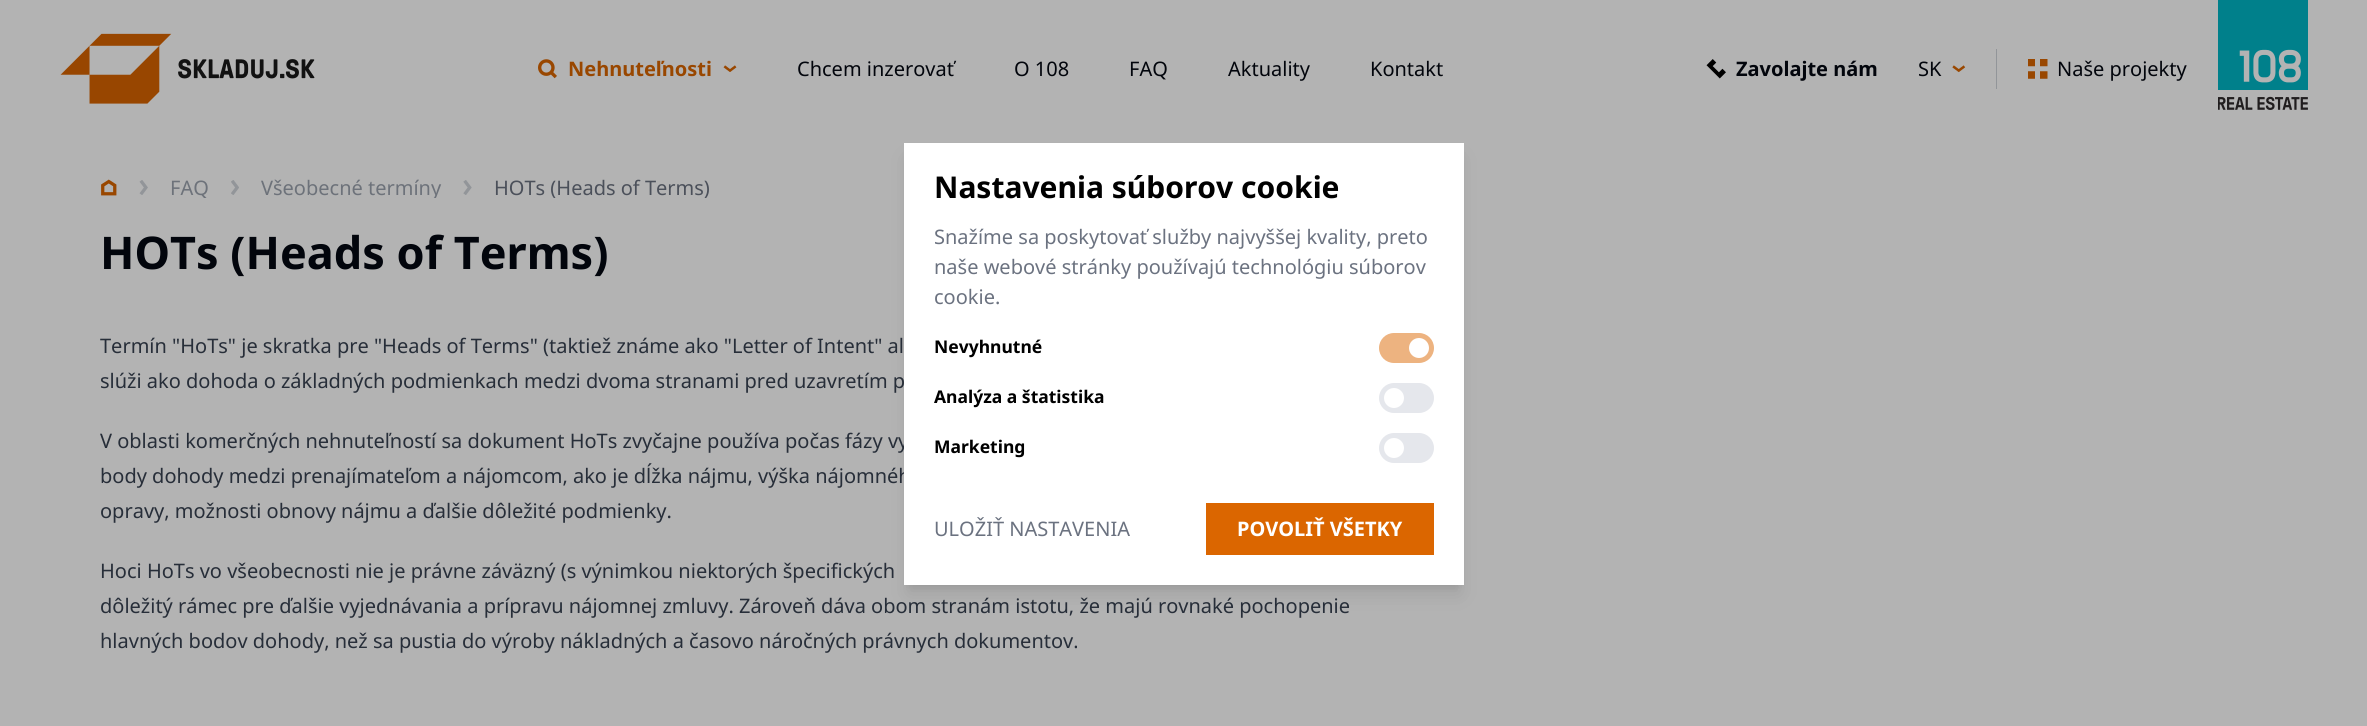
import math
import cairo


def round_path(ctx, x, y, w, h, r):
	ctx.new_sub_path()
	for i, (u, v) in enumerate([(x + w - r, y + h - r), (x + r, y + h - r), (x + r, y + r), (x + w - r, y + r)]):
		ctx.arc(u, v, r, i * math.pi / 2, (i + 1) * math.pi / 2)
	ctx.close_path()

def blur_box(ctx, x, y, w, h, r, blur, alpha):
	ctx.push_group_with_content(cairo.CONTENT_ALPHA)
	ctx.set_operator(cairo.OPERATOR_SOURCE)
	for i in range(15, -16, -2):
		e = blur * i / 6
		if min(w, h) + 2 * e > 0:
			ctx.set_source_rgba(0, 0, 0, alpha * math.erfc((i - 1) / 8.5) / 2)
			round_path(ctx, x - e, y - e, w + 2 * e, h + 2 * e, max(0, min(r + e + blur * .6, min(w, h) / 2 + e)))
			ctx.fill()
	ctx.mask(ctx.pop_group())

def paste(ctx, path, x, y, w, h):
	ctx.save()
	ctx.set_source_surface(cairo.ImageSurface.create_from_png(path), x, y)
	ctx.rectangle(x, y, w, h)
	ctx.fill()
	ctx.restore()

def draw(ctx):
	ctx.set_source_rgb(0.702, 0.702, 0.702)
	ctx.paint()
	paste(ctx, 'media/1.png', 60, 33, 255, 71)
	paste(ctx, 'media/2.png', 538, 59, 19, 20)
	ctx.select_font_face('Noto Sans', cairo.FONT_SLANT_NORMAL, cairo.FONT_WEIGHT_BOLD)
	ctx.set_font_size(20)
	ctx.set_source_rgb(0.6, 0.278, 0)
	ctx.move_to(568, 76)
	ctx.show_text('Nehnuteľnosti')
	paste(ctx, 'media/3.png', 723, 65, 14, 7)
	ctx.select_font_face('Noto Sans')
	ctx.set_source_rgb(0.008, 0.02, 0.047)
	for x, y, s in [
		(797, 76, 'Chcem inzerovať'),
		(1014, 76, 'O 108'),
		(1129, 76, 'FAQ'),
		(1228, 76, 'Aktuality'),
		(1370, 76, 'Kontakt'),
	]:
		ctx.move_to(x, y)
		ctx.show_text(s)
	paste(ctx, 'media/4.png', 1706, 59, 20, 20)
	ctx.select_font_face('Noto Sans', cairo.FONT_SLANT_NORMAL, cairo.FONT_WEIGHT_BOLD)
	ctx.move_to(1736, 76)
	ctx.show_text('Zavolajte nám')
	ctx.select_font_face('Noto Sans')
	ctx.move_to(1918, 76)
	ctx.show_text('SK')
	paste(ctx, 'media/5.png', 1952, 65, 14, 8)
	ctx.set_source_rgb(0.573, 0.584, 0.6)
	ctx.rectangle(1996, 49, 1, 40)
	ctx.fill()
	paste(ctx, 'media/6.png', 2028, 59, 20, 20)
	ctx.set_source_rgb(0.008, 0.02, 0.047)
	ctx.move_to(2057, 76)
	ctx.show_text('Naše projekty')
	paste(ctx, 'media/7.png', 2218, 0, 90, 110)
	paste(ctx, 'media/8.png', 101, 179, 16, 17)
	paste(ctx, 'media/9.png', 139, 180, 9, 15)
	ctx.save()
	ctx.rectangle(80, 178, 2208, 20)
	ctx.clip()
	ctx.set_source_rgb(0.427, 0.447, 0.478)
	ctx.move_to(170, 195)
	ctx.show_text('FAQ')
	ctx.restore()
	paste(ctx, 'media/10.png', 231, 180, 8, 15)
	ctx.save()
	ctx.rectangle(80, 178, 2208, 20)
	ctx.clip()
	ctx.set_source_rgb(0.427, 0.447, 0.478)
	ctx.move_to(261, 195)
	ctx.show_text('Všeobecné termíny')
	ctx.restore()
	paste(ctx, 'media/11.png', 463, 180, 9, 15)
	ctx.save()
	ctx.rectangle(80, 178, 2208, 20)
	ctx.clip()
	ctx.set_source_rgb(0.294, 0.314, 0.353)
	ctx.move_to(494, 195)
	ctx.show_text('HOTs (Heads of Terms)')
	ctx.restore()
	ctx.select_font_face('Noto Sans', cairo.FONT_SLANT_NORMAL, cairo.FONT_WEIGHT_BOLD)
	ctx.set_font_size(45)
	ctx.move_to(100, 269)
	ctx.show_text('HOTs (Heads of Terms)')
	ctx.select_font_face('Noto Sans')
	ctx.set_font_size(20)
	ctx.set_source_rgb(0.153, 0.18, 0.224)
	for x, y, s in [
		(100, 353, 'Termín "HoTs" je skratka pre "Heads of Terms" (taktiež známe ako "Letter of Intent" al'),
		(100, 388, 'slúži ako dohoda o základných podmienkach medzi dvoma stranami pred uzavretím p'),
		(100, 448, 'V oblasti komerčných nehnuteľností sa dokument HoTs zvyčajne používa počas fázy vy'),
		(100, 483, 'body dohody medzi prenajímateľom a nájomcom, ako je dĺžka nájmu, výška nájomnéh'),
		(100, 518, 'opravy, možnosti obnovy nájmu a ďalšie dôležité podmienky.'),
		(100, 578, 'Hoci HoTs vo všeobecnosti nie je právne záväzný (s výnimkou niektorých špecifických'),
		(100, 613, 'dôležitý rámec pre ďalšie vyjednávania a prípravu nájomnej zmluvy. Zároveň dáva obom stranám istotu, že majú rovnaké pochopenie'),
		(100, 648, 'hlavných bodov dohody, než sa pustia do výroby nákladných a časovo náročných právnych dokumentov.'),
	]:
		ctx.move_to(x, y)
		ctx.show_text(s)
	ctx.set_source_rgb(0, 0, 0)
	blur_box(ctx, 909, 153, 550, 432, 0, 4, 0.1)
	blur_box(ctx, 908, 159, 552, 435, 0, 9.5, 0.1)
	ctx.set_source_rgb(1, 1, 1)
	ctx.rectangle(904, 143, 560, 442)
	ctx.fill()
	ctx.select_font_face('Noto Sans', cairo.FONT_SLANT_NORMAL, cairo.FONT_WEIGHT_BOLD)
	ctx.set_font_size(30)
	ctx.set_source_rgb(0, 0, 0)
	ctx.move_to(934, 198)
	ctx.show_text('Nastavenia súborov cookie')
	ctx.select_font_face('Noto Sans')
	ctx.set_font_size(20)
	ctx.set_source_rgb(0.42, 0.447, 0.502)
	for x, y, s in [
		(934, 244, 'Snažíme sa poskytovať služby najvyššej kvality, preto'),
		(934, 274, 'naše webové stránky používajú technológiu súborov'),
		(934, 304, 'cookie.'),
	]:
		ctx.move_to(x, y)
		ctx.show_text(s)
	ctx.select_font_face('Noto Sans', cairo.FONT_SLANT_NORMAL, cairo.FONT_WEIGHT_BOLD)
	ctx.set_font_size(17.5)
	ctx.set_source_rgb(0, 0, 0)
	ctx.move_to(934, 353)
	ctx.show_text('Nevyhnutné')
	ctx.set_source_rgb(0.929, 0.702, 0.502)
	round_path(ctx, 1379, 333, 55, 30, 15)
	ctx.fill()
	ctx.set_source_rgb(1, 1, 1)
	ctx.arc(1419, 348, 10, 0, 2 * math.pi)
	ctx.fill()
	ctx.set_source_rgb(0, 0, 0)
	ctx.move_to(934, 403)
	ctx.show_text('Analýza a štatistika')
	ctx.set_source_rgb(0.898, 0.906, 0.922)
	round_path(ctx, 1379, 383, 55, 30, 15)
	ctx.fill()
	ctx.set_source_rgb(1, 1, 1)
	ctx.arc(1394, 398, 10, 0, 2 * math.pi)
	ctx.fill()
	ctx.set_source_rgb(0, 0, 0)
	ctx.move_to(934, 453)
	ctx.show_text('Marketing')
	ctx.set_source_rgb(0.898, 0.906, 0.922)
	round_path(ctx, 1379, 433, 55, 30, 15)
	ctx.fill()
	ctx.set_source_rgb(1, 1, 1)
	ctx.arc(1394, 448, 10, 0, 2 * math.pi)
	ctx.fill()
	ctx.select_font_face('Noto Sans')
	ctx.set_font_size(20)
	ctx.set_source_rgb(0.42, 0.447, 0.502)
	ctx.move_to(934, 536)
	ctx.show_text('ULOŽIŤ NASTAVENIA')
	ctx.set_source_rgb(0.859, 0.4, 0)
	ctx.rectangle(1206, 503, 228, 52)
	ctx.fill()
	ctx.select_font_face('Noto Sans', cairo.FONT_SLANT_NORMAL, cairo.FONT_WEIGHT_BOLD)
	ctx.set_source_rgb(1, 1, 1)
	ctx.move_to(1237, 536)
	ctx.show_text('POVOLIŤ VŠETKY')


surface = cairo.ImageSurface(cairo.FORMAT_RGB24, 2367, 726)
ctx = cairo.Context(surface)
options = cairo.FontOptions()
options.set_hint_metrics(cairo.HINT_METRICS_OFF)
options.set_hint_style(cairo.HINT_STYLE_NONE)
ctx.set_font_options(options)
ctx.set_miter_limit(4)
draw(ctx)
surface.write_to_png('image.png')
